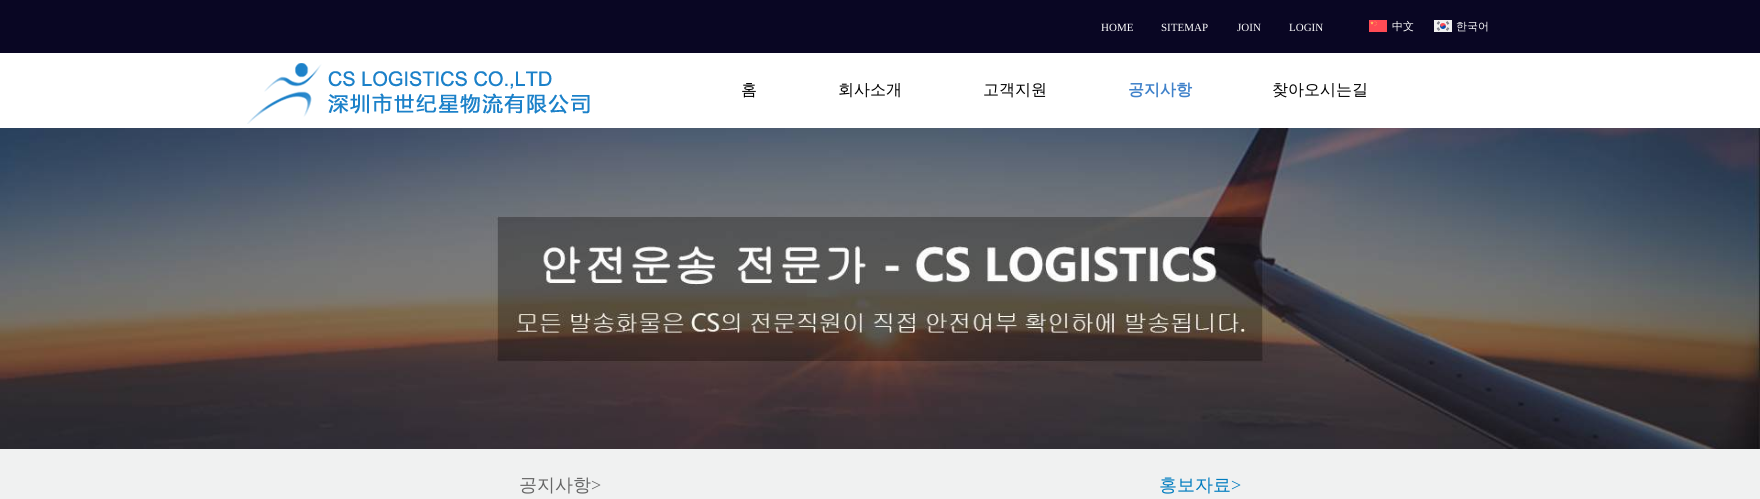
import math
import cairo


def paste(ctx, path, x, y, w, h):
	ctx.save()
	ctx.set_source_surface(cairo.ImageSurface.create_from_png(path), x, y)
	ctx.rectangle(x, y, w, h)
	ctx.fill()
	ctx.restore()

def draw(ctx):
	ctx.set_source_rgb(1, 1, 1)
	ctx.paint()
	ctx.set_source_rgb(0.039, 0.027, 0.137)
	ctx.rectangle(0, 0, 1760, 53)
	ctx.fill()
	ctx.select_font_face('Liberation Serif')
	ctx.set_font_size(11)
	ctx.set_source_rgb(1, 1, 1)
	for x, y, s in [
		(1101, 31, 'HOME'),
		(1161, 31, 'SITEMAP'),
		(1237, 31, 'JOIN'),
		(1289, 31, 'LOGIN'),
	]:
		ctx.move_to(x, y)
		ctx.show_text(s)
	paste(ctx, 'media/1.png', 1369, 20, 18, 12)
	ctx.select_font_face('WenQuanYi Zen Hei Medium')
	ctx.move_to(1392, 30)
	ctx.show_text('中文')
	paste(ctx, 'media/2.png', 1434, 20, 18, 12)
	ctx.move_to(1456, 30)
	ctx.show_text('한국어')
	paste(ctx, 'media/3.png', 247, 63, 343, 61)
	ctx.set_font_size(16)
	ctx.set_source_rgb(0, 0, 0)
	for x, y, s in [
		(741, 95, '홈'),
		(838, 95, '회사소개'),
		(983, 95, '고객지원'),
	]:
		ctx.move_to(x, y)
		ctx.show_text(s)
	ctx.select_font_face('WenQuanYi Zen Hei', cairo.FONT_SLANT_NORMAL, cairo.FONT_WEIGHT_BOLD)
	ctx.set_source_rgb(0.251, 0.51, 0.792)
	ctx.move_to(1128, 95)
	ctx.show_text('공지사항')
	ctx.select_font_face('WenQuanYi Zen Hei Medium')
	ctx.set_source_rgb(0, 0, 0)
	ctx.move_to(1272, 95)
	ctx.show_text('찾아오시는길')
	paste(ctx, 'media/4.png', 0, 128, 1760, 321)
	ctx.set_source_rgb(0.941, 0.945, 0.945)
	ctx.rectangle(0, 449, 1760, 50)
	ctx.fill()
	ctx.set_font_size(18)
	ctx.set_source_rgb(0.4, 0.4, 0.4)
	ctx.move_to(519, 491)
	ctx.show_text('공지사항')
	ctx.select_font_face('Liberation Serif')
	ctx.move_to(591, 491)
	ctx.show_text('>')
	ctx.select_font_face('WenQuanYi Zen Hei Medium')
	ctx.set_source_rgb(0, 0.486, 0.749)
	ctx.move_to(1159, 491)
	ctx.show_text('홍보자료')
	ctx.select_font_face('Liberation Serif')
	ctx.move_to(1231, 491)
	ctx.show_text('>')


surface = cairo.ImageSurface(cairo.FORMAT_RGB24, 1760, 499)
ctx = cairo.Context(surface)
options = cairo.FontOptions()
options.set_hint_metrics(cairo.HINT_METRICS_OFF)
options.set_hint_style(cairo.HINT_STYLE_NONE)
ctx.set_font_options(options)
ctx.set_miter_limit(4)
draw(ctx)
surface.write_to_png('image.png')
